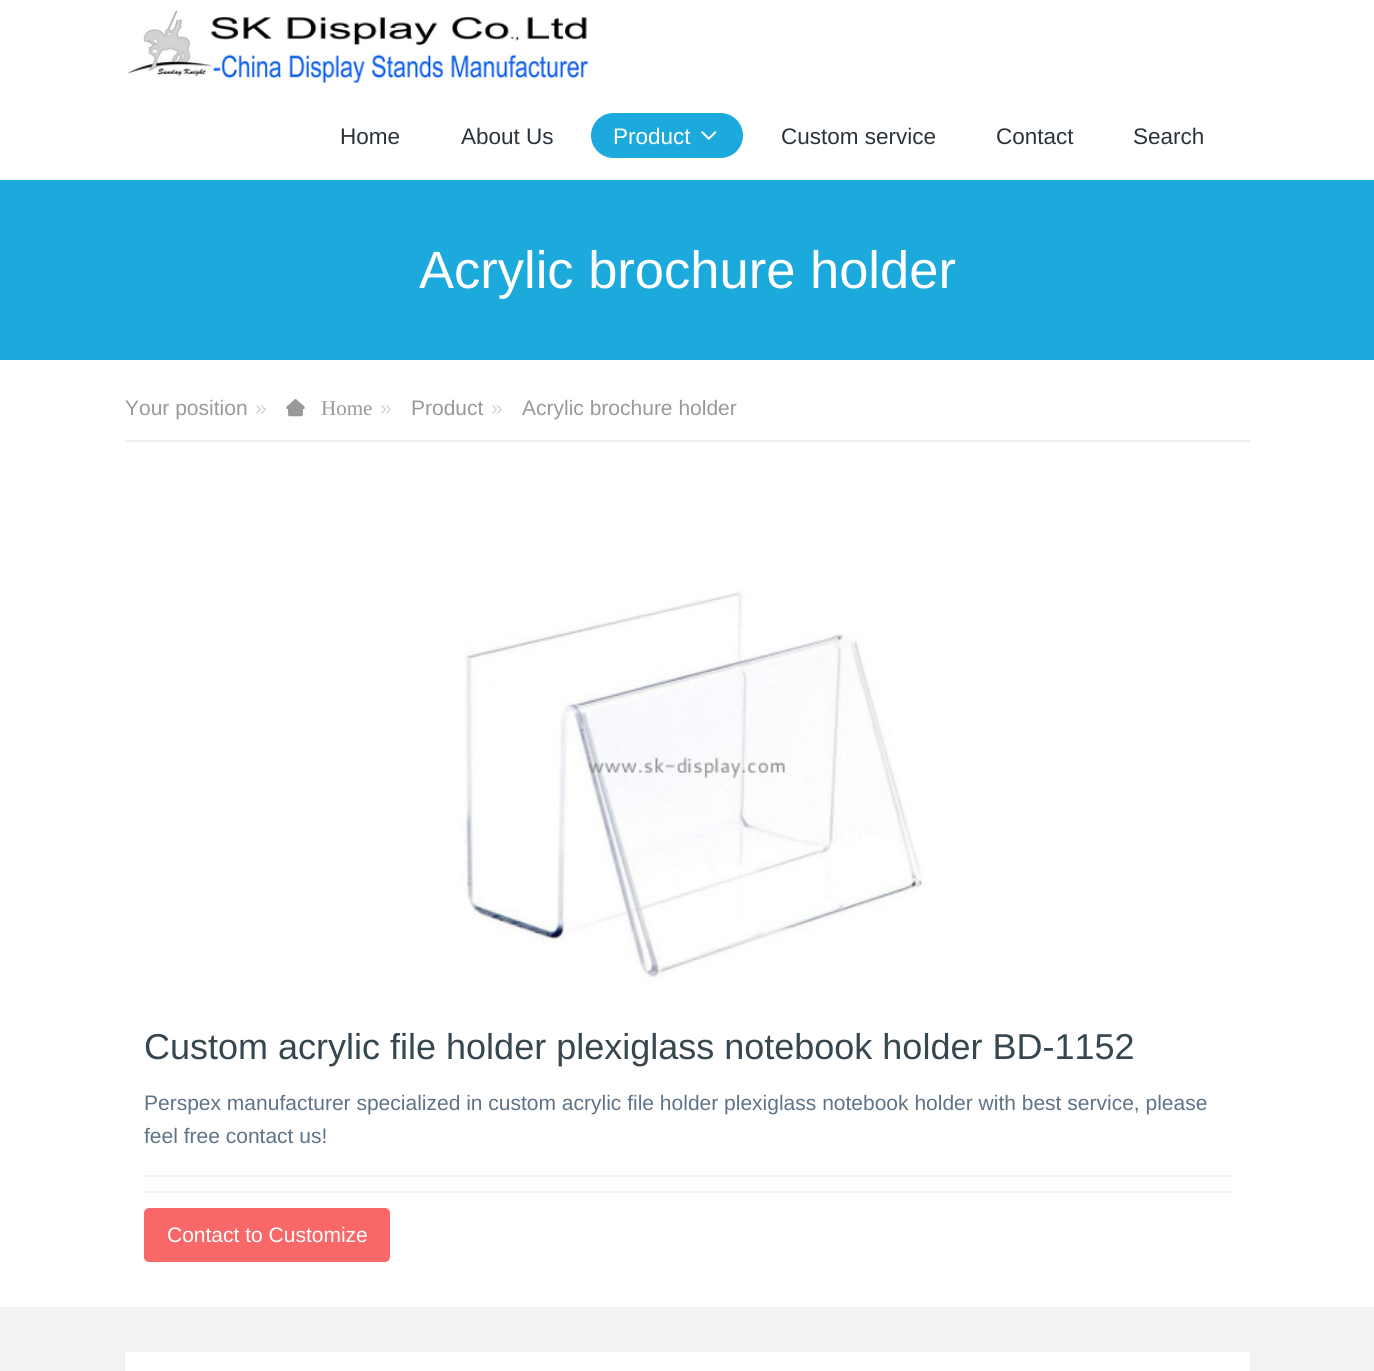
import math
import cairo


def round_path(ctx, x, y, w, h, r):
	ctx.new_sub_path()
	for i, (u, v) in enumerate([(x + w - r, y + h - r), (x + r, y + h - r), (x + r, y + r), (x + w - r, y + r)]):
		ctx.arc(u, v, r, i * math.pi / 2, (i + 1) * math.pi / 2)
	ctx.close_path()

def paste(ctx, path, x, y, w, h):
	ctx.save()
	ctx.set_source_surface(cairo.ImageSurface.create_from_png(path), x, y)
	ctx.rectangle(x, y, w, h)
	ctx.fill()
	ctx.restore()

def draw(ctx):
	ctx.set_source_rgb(1, 1, 1)
	ctx.paint()
	paste(ctx, 'media/1.png', 127, 10, 462, 73)
	ctx.select_font_face('Liberation Sans')
	ctx.set_font_size(22.5)
	ctx.set_source_rgb(0.165, 0.2, 0.235)
	ctx.move_to(340, 144)
	ctx.show_text('Home')
	ctx.move_to(461, 144)
	ctx.show_text('About Us')
	ctx.set_source_rgb(0.106, 0.667, 0.859)
	round_path(ctx, 591, 113, 152, 45, 22.5)
	ctx.fill()
	ctx.set_source_rgb(1, 1, 1)
	ctx.move_to(613, 144)
	ctx.show_text('Product')
	paste(ctx, 'media/2.png', 701, 131, 16, 9)
	ctx.set_source_rgb(0.165, 0.2, 0.235)
	for x, y, s in [
		(781, 144, 'Custom service'),
		(996, 144, 'Contact'),
		(1133, 144, 'Search'),
	]:
		ctx.move_to(x, y)
		ctx.show_text(s)
	ctx.set_source_rgb(0.106, 0.667, 0.859)
	ctx.rectangle(0, 180, 1374, 180)
	ctx.fill()
	ctx.set_font_size(52.5)
	ctx.set_source_rgb(1, 1, 1)
	ctx.move_to(419, 288)
	ctx.show_text('Acrylic brochure holder')
	ctx.set_source_rgb(0.933, 0.933, 0.933)
	ctx.rectangle(125, 440, 1125, 2)
	ctx.fill()
	ctx.set_font_size(21)
	ctx.set_source_rgb(0.6, 0.6, 0.6)
	ctx.move_to(125, 415)
	ctx.show_text('Your position')
	ctx.set_source_rgb(0.8, 0.835, 0.859)
	ctx.move_to(255, 415)
	ctx.show_text('»')
	paste(ctx, 'media/3.png', 286, 399, 19, 18)
	ctx.select_font_face('Liberation Serif')
	ctx.set_source_rgb(0.6, 0.6, 0.6)
	ctx.move_to(321, 415)
	ctx.show_text('Home')
	ctx.select_font_face('Liberation Sans')
	ctx.set_source_rgb(0.8, 0.835, 0.859)
	ctx.move_to(380, 415)
	ctx.show_text('»')
	ctx.set_source_rgb(0.6, 0.6, 0.6)
	ctx.move_to(411, 415)
	ctx.show_text('Product')
	ctx.set_source_rgb(0.8, 0.835, 0.859)
	ctx.move_to(491, 415)
	ctx.show_text('»')
	ctx.set_source_rgb(0.6, 0.6, 0.6)
	ctx.move_to(522, 415)
	ctx.show_text('Acrylic brochure holder')
	ctx.set_source_rgb(0.949, 0.949, 0.949)
	ctx.rectangle(0, 1307, 1374, 64)
	ctx.fill()
	paste(ctx, 'media/4.png', 461, 590, 464, 391)
	ctx.set_font_size(36)
	ctx.set_source_rgb(0.216, 0.278, 0.31)
	ctx.move_to(144, 1059)
	ctx.show_text('Custom acrylic file holder plexiglass notebook holder BD-1152')
	ctx.set_font_size(21)
	ctx.set_source_rgb(0.369, 0.451, 0.529)
	ctx.move_to(144, 1110)
	ctx.show_text('Perspex manufacturer specialized in custom acrylic file holder plexiglass notebook holder with best service, please')
	ctx.move_to(144, 1143)
	ctx.show_text('feel free contact us!')
	ctx.set_source_rgb(0.941, 0.949, 0.961)
	ctx.rectangle(144, 1175, 1086, 2)
	ctx.fill()
	ctx.rectangle(144, 1191, 1086, 2)
	ctx.fill()
	ctx.set_source_rgb(0.976, 0.408, 0.408)
	round_path(ctx, 145, 1209, 244, 52, 4)
	ctx.fill_preserve()
	ctx.stroke()
	ctx.set_source_rgb(1, 1, 1)
	ctx.move_to(167, 1242)
	ctx.show_text('Contact to Customize')
	ctx.rectangle(125, 1352, 1125, 19)
	ctx.fill()


surface = cairo.ImageSurface(cairo.FORMAT_RGB24, 1374, 1371)
ctx = cairo.Context(surface)
options = cairo.FontOptions()
options.set_hint_metrics(cairo.HINT_METRICS_OFF)
options.set_hint_style(cairo.HINT_STYLE_NONE)
ctx.set_font_options(options)
ctx.set_miter_limit(4)
draw(ctx)
surface.write_to_png('image.png')
